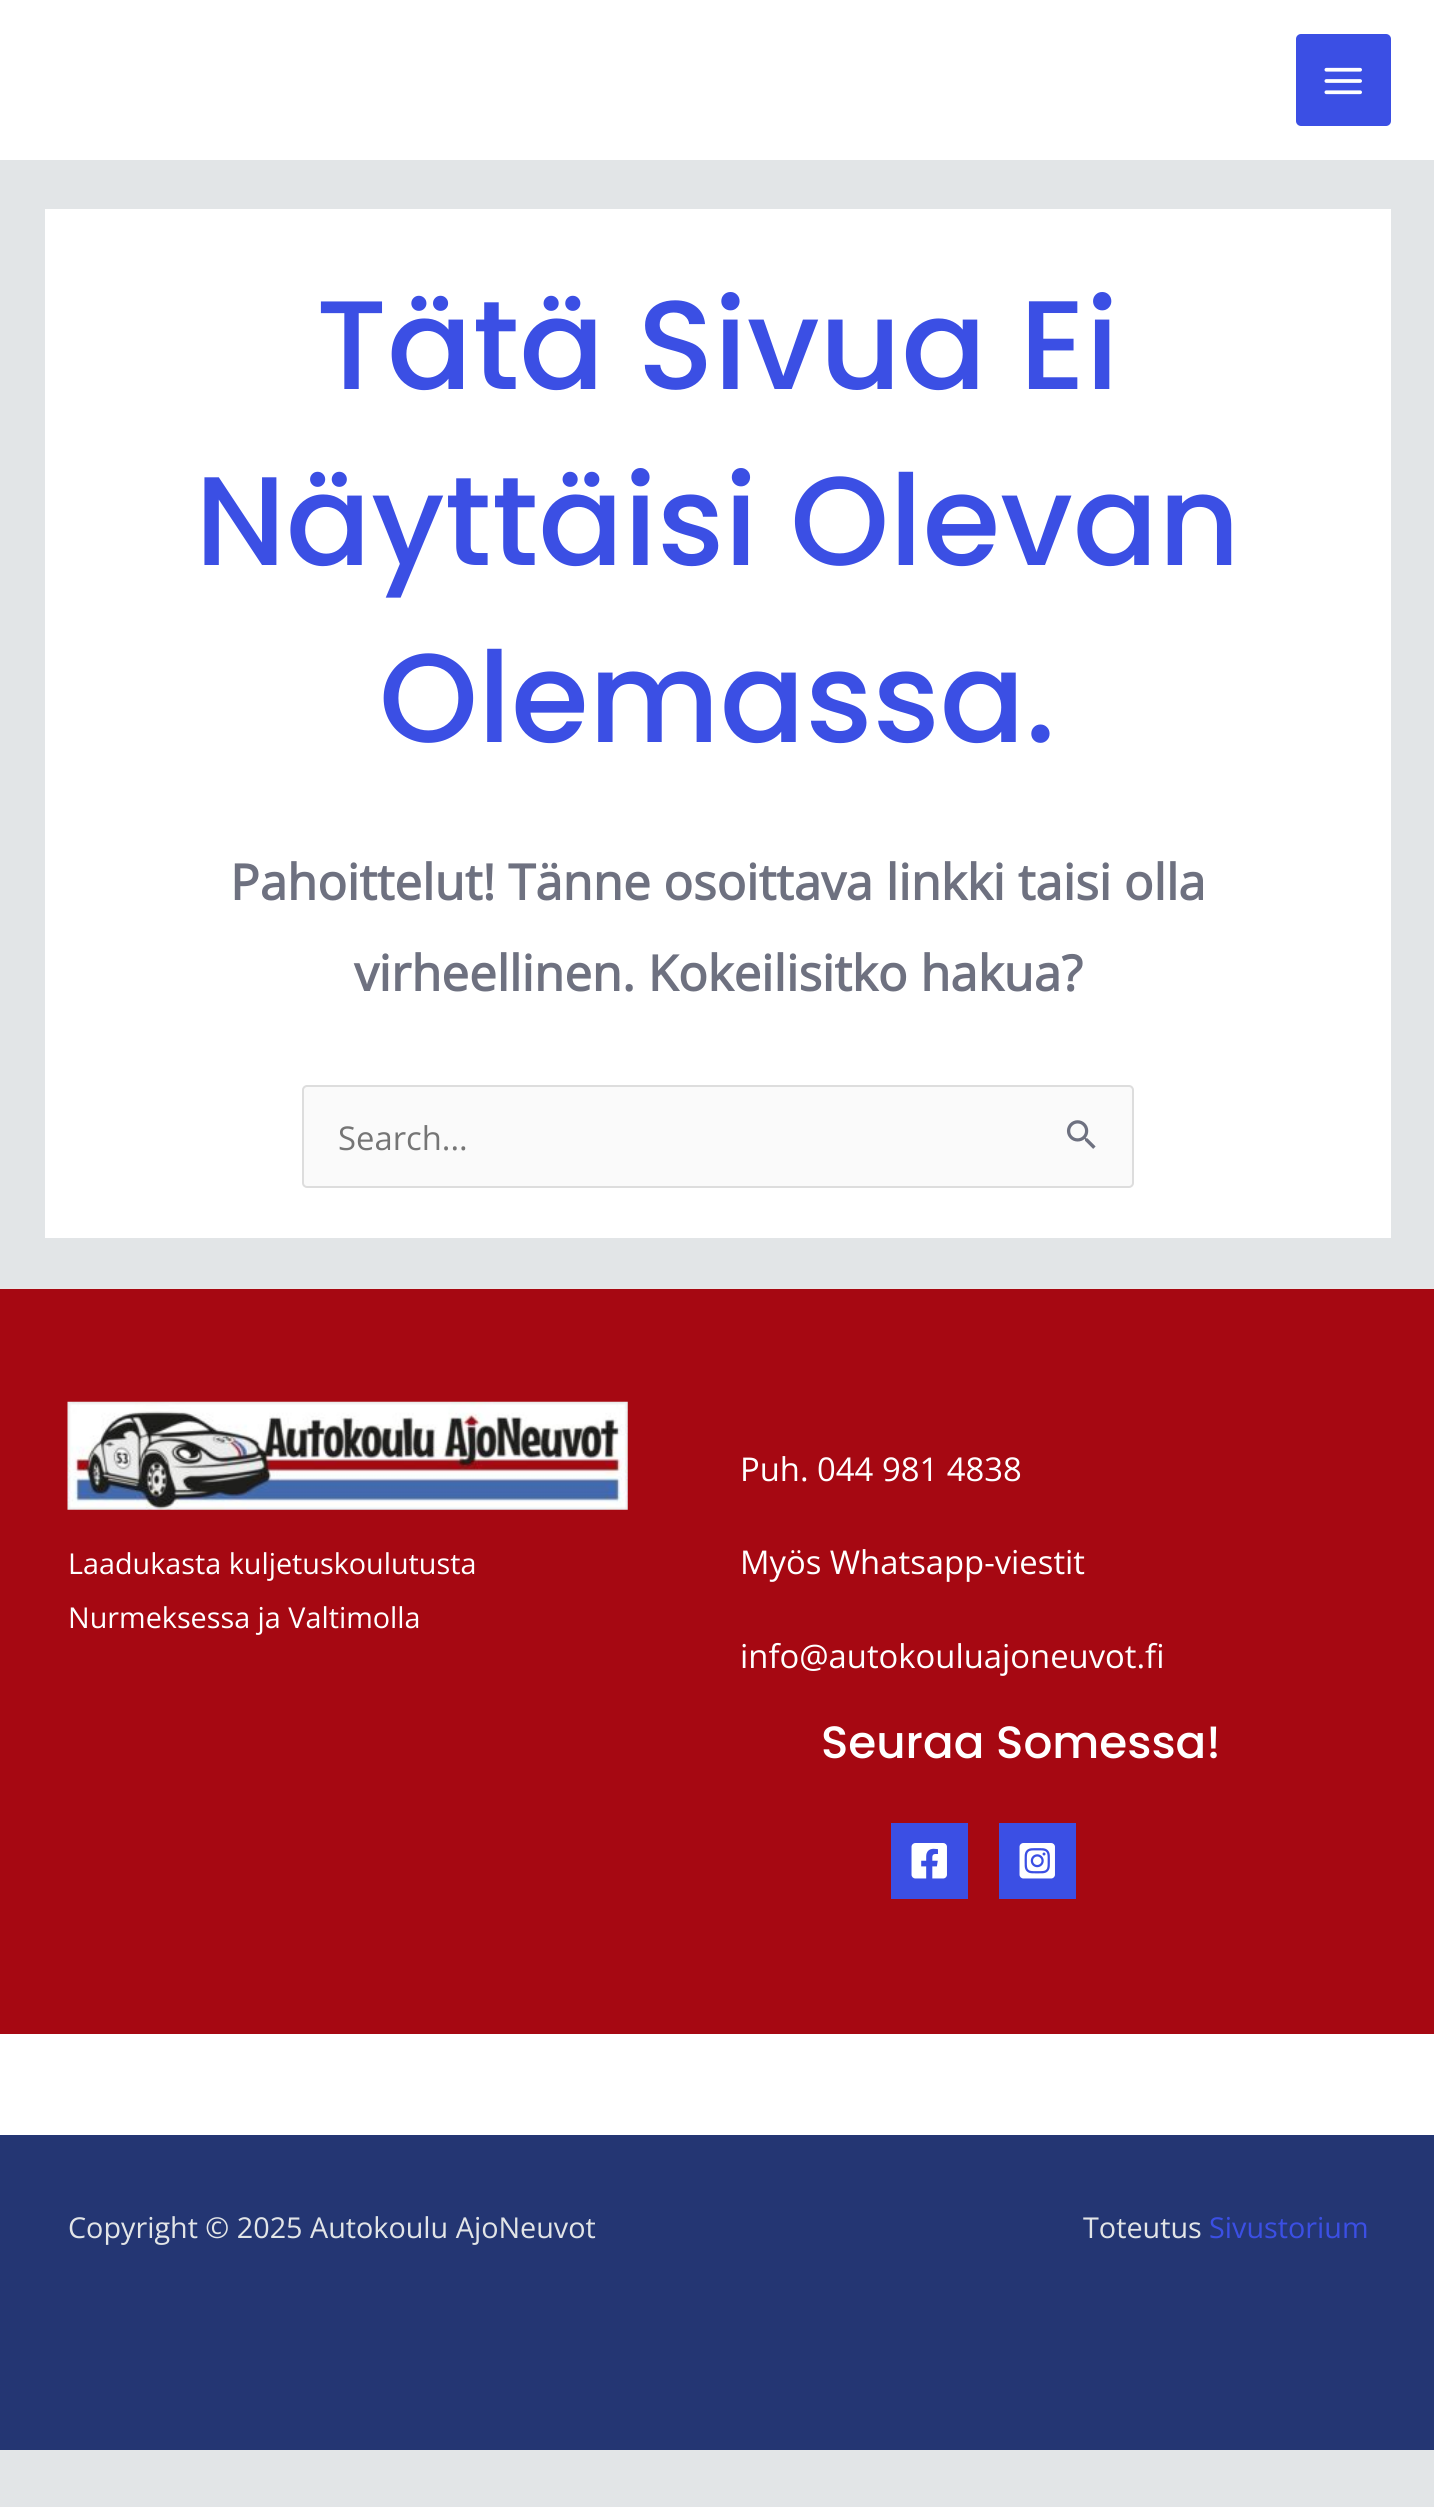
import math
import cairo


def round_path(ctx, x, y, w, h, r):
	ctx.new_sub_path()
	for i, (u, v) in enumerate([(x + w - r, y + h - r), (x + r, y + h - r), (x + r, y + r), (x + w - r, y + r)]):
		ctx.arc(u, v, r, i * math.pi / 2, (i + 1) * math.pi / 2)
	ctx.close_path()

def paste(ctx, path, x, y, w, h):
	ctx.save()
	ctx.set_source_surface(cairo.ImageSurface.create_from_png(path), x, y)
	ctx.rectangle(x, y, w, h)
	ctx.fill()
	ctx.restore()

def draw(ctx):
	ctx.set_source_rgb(0.886, 0.898, 0.906)
	ctx.paint()
	ctx.set_source_rgb(1, 1, 1)
	ctx.rectangle(0, 0, 1434, 160)
	ctx.fill()
	ctx.set_source_rgb(0.231, 0.31, 0.894)
	round_path(ctx, 1296, 34, 95, 92, 5)
	ctx.fill()
	paste(ctx, 'media/1.png', 1324, 67, 38, 28)
	ctx.set_source_rgb(1, 1, 1)
	ctx.rectangle(45, 209, 1346, 1029)
	ctx.fill()
	ctx.select_font_face('Poppins Medium')
	ctx.set_font_size(126)
	ctx.set_source_rgb(0.231, 0.31, 0.894)
	for x, y, s in [
		(316, 389, 'Tätä Sivua Ei'),
		(195, 565, 'Näyttäisi Olevan'),
		(379, 742, 'Olemassa.'),
	]:
		ctx.move_to(x, y)
		ctx.show_text(s)
	ctx.select_font_face('Open Sans', cairo.FONT_SLANT_NORMAL, cairo.FONT_WEIGHT_BOLD)
	ctx.set_font_size(49.25)
	ctx.set_source_rgb(0.431, 0.443, 0.502)
	ctx.move_to(230, 900)
	ctx.show_text('Pahoittelut! Tänne osoittava linkki taisi olla')
	ctx.move_to(354, 991)
	ctx.show_text('virheellinen. Kokeilisitko hakua?')
	ctx.set_source_rgb(0.98, 0.98, 0.98)
	round_path(ctx, 303, 1086, 830, 101, 4)
	ctx.fill_preserve()
	ctx.set_source_rgb(0.867, 0.867, 0.867)
	ctx.stroke()
	ctx.select_font_face('Open Sans')
	ctx.set_font_size(32.8)
	ctx.set_source_rgb(0.459, 0.459, 0.459)
	ctx.move_to(338, 1150)
	ctx.show_text('Search...')
	paste(ctx, 'media/2.png', 1066, 1120, 30, 29)
	ctx.set_source_rgb(0.141, 0.212, 0.451)
	ctx.rectangle(0, 2135, 1434, 315)
	ctx.fill()
	ctx.set_source_rgb(0.651, 0.035, 0.071)
	ctx.rectangle(0, 1289, 1434, 745)
	ctx.fill()
	ctx.set_source_rgb(0.902, 0.902, 0.902)
	ctx.rectangle(0, 1287, 1434, 2)
	ctx.fill()
	paste(ctx, 'media/3.png', 67, 1401, 561, 109)
	ctx.set_font_size(28.75)
	ctx.set_source_rgb(1, 1, 1)
	ctx.move_to(68, 1574)
	ctx.show_text('Laadukasta kuljetuskoulutusta')
	ctx.move_to(68, 1628)
	ctx.show_text('Nurmeksessa ja Valtimolla')
	ctx.set_font_size(32.8)
	for x, y, s in [
		(740, 1481, 'Puh. 044 981 4838'),
		(740, 1574, 'Myös Whatsapp-viestit'),
		(740, 1668, 'info@autokouluajoneuvot.fi'),
	]:
		ctx.move_to(x, y)
		ctx.show_text(s)
	ctx.select_font_face('Poppins Medium')
	ctx.set_font_size(45.25)
	ctx.move_to(821, 1758)
	ctx.show_text('Seuraa Somessa!')
	ctx.set_source_rgb(0.231, 0.31, 0.894)
	ctx.rectangle(891, 1823, 77, 76)
	ctx.fill()
	paste(ctx, 'media/4.png', 911, 1843, 36, 36)
	ctx.rectangle(999, 1823, 77, 76)
	ctx.fill()
	paste(ctx, 'media/5.png', 1019, 1843, 36, 36)
	ctx.set_source_rgb(1, 1, 1)
	ctx.rectangle(0, 2034, 1434, 101)
	ctx.fill()
	ctx.select_font_face('Open Sans')
	ctx.set_font_size(28.75)
	ctx.set_source_rgb(0.886, 0.898, 0.906)
	ctx.move_to(68, 2238)
	ctx.show_text('Copyright © 2025 Autokoulu AjoNeuvot')
	ctx.move_to(1083, 2238)
	ctx.show_text('Toteutus')
	ctx.set_source_rgb(0.231, 0.31, 0.894)
	ctx.move_to(1209, 2238)
	ctx.show_text('Sivustorium')


surface = cairo.ImageSurface(cairo.FORMAT_RGB24, 1434, 2507)
ctx = cairo.Context(surface)
options = cairo.FontOptions()
options.set_hint_metrics(cairo.HINT_METRICS_OFF)
options.set_hint_style(cairo.HINT_STYLE_NONE)
ctx.set_font_options(options)
ctx.set_miter_limit(4)
draw(ctx)
surface.write_to_png('image.png')
